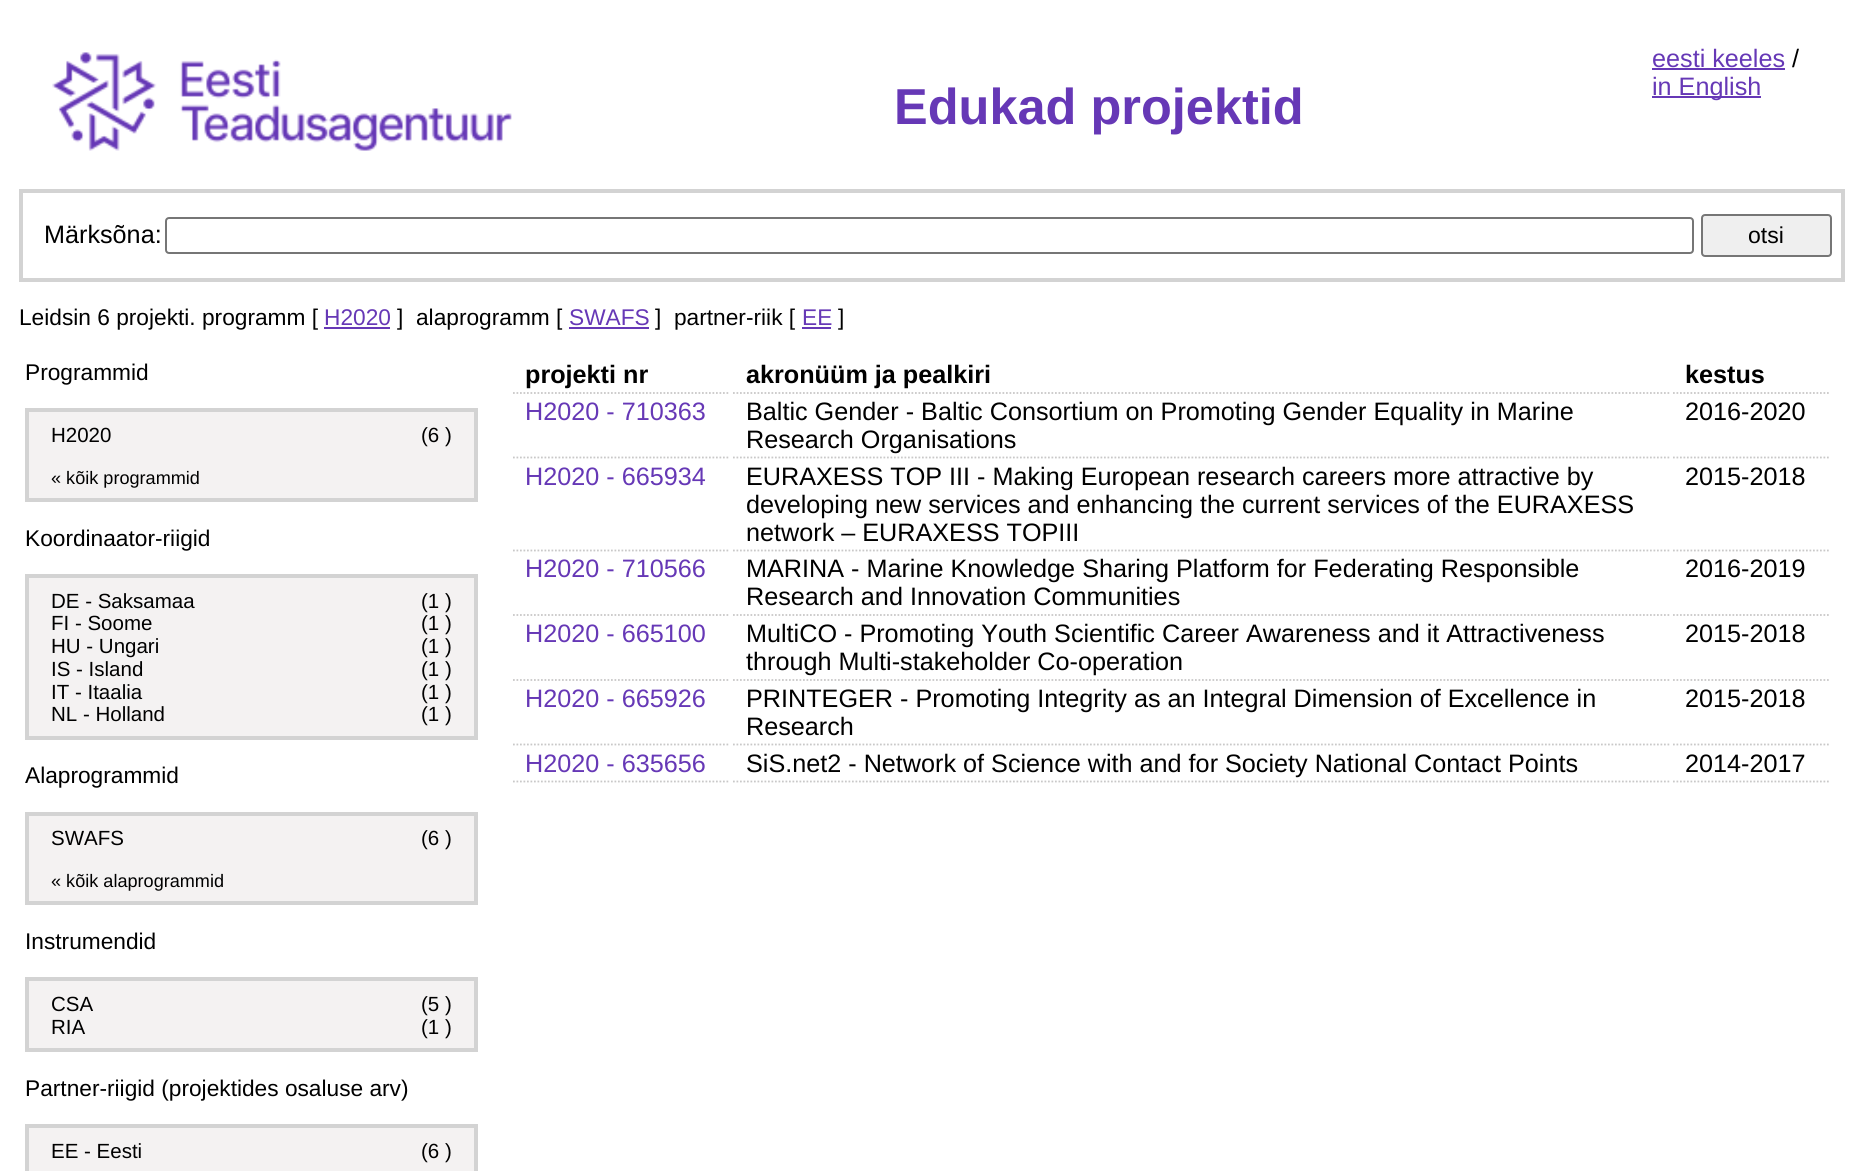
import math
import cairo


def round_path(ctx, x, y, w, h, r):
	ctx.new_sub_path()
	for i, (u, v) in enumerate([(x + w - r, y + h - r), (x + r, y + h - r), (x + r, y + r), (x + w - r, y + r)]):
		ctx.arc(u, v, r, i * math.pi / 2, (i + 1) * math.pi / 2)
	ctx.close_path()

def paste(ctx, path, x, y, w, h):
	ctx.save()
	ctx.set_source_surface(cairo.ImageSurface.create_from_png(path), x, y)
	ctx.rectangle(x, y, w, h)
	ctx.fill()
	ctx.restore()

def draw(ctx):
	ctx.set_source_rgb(1, 1, 1)
	ctx.paint()
	paste(ctx, 'media/1.png', 52, 52, 460, 99)
	ctx.select_font_face('Liberation Sans', cairo.FONT_SLANT_NORMAL, cairo.FONT_WEIGHT_BOLD)
	ctx.set_font_size(50.5)
	ctx.set_source_rgb(0.4, 0.22, 0.714)
	ctx.move_to(894, 124)
	ctx.show_text('Edukad projektid')
	ctx.select_font_face('Liberation Sans')
	ctx.set_font_size(25.2)
	ctx.move_to(1652, 67)
	ctx.show_text('eesti keeles')
	ctx.rectangle(1652, 68, 133, 2)
	ctx.fill()
	ctx.set_source_rgb(0, 0, 0)
	ctx.move_to(1792, 67)
	ctx.show_text('/')
	ctx.set_source_rgb(0.4, 0.22, 0.714)
	ctx.rectangle(1652, 96, 109, 2)
	ctx.fill()
	ctx.move_to(1652, 95)
	ctx.show_text('in English')
	ctx.rectangle(21, 191, 1822, 89)
	ctx.set_source_rgb(0.827, 0.827, 0.827)
	ctx.set_line_width(4)
	ctx.stroke()
	ctx.set_source_rgb(0, 0, 0)
	ctx.move_to(44, 243)
	ctx.show_text('Märksõna:')
	round_path(ctx, 166, 218, 1527, 35, 3)
	ctx.set_source_rgb(0.463, 0.463, 0.463)
	ctx.set_line_width(2)
	ctx.stroke()
	ctx.set_source_rgb(0.937, 0.937, 0.937)
	round_path(ctx, 1702, 215, 129, 41, 3)
	ctx.fill_preserve()
	ctx.set_source_rgb(0.463, 0.463, 0.463)
	ctx.stroke()
	ctx.set_font_size(23)
	ctx.set_source_rgb(0, 0, 0)
	ctx.move_to(1748, 243)
	ctx.show_text('otsi')
	ctx.set_font_size(22.7)
	ctx.move_to(19, 325)
	ctx.show_text('Leidsin 6 projekti. programm [')
	ctx.set_source_rgb(0.4, 0.22, 0.714)
	ctx.move_to(324, 325)
	ctx.show_text('H2020')
	ctx.rectangle(324, 327, 66, 2)
	ctx.fill()
	ctx.set_source_rgb(0, 0, 0)
	ctx.move_to(397, 325)
	ctx.show_text(']')
	ctx.move_to(416, 325)
	ctx.show_text('alaprogramm [')
	ctx.set_source_rgb(0.4, 0.22, 0.714)
	ctx.move_to(569, 325)
	ctx.show_text('SWAFS')
	ctx.rectangle(569, 327, 80, 2)
	ctx.fill()
	ctx.set_source_rgb(0, 0, 0)
	ctx.move_to(655, 325)
	ctx.show_text(']')
	ctx.move_to(674, 325)
	ctx.show_text('partner-riik [')
	ctx.set_source_rgb(0.4, 0.22, 0.714)
	ctx.move_to(802, 325)
	ctx.show_text('EE')
	ctx.rectangle(802, 327, 29, 2)
	ctx.fill()
	ctx.set_source_rgb(0, 0, 0)
	ctx.move_to(838, 325)
	ctx.show_text(']')
	ctx.move_to(25, 380)
	ctx.show_text('Programmid')
	ctx.set_source_rgb(0.957, 0.949, 0.949)
	ctx.rectangle(27, 410, 449, 90)
	ctx.fill_preserve()
	ctx.set_source_rgb(0.827, 0.827, 0.827)
	ctx.set_line_width(4)
	ctx.stroke()
	ctx.set_font_size(20.5)
	ctx.set_source_rgb(0, 0, 0)
	ctx.move_to(51, 442)
	ctx.show_text('H2020')
	ctx.move_to(421, 442)
	ctx.show_text('(6 )')
	ctx.set_font_size(18.1)
	ctx.move_to(51, 484)
	ctx.show_text('« kõik programmid')
	ctx.set_font_size(22.7)
	ctx.move_to(25, 546)
	ctx.show_text('Koordinaator-riigid')
	ctx.set_source_rgb(0.957, 0.949, 0.949)
	ctx.rectangle(27, 576, 449, 162)
	ctx.fill_preserve()
	ctx.set_source_rgb(0.827, 0.827, 0.827)
	ctx.stroke()
	ctx.set_font_size(20.5)
	ctx.set_source_rgb(0, 0, 0)
	for x, y, s in [
		(51, 608, 'DE - Saksamaa'),
		(421, 608, '(1 )'),
		(51, 630, 'FI - Soome'),
		(421, 630, '(1 )'),
		(51, 653, 'HU - Ungari'),
		(421, 653, '(1 )'),
		(51, 676, 'IS - Island'),
		(421, 676, '(1 )'),
		(51, 699, 'IT - Itaalia'),
		(421, 699, '(1 )'),
		(51, 721, 'NL - Holland'),
		(421, 721, '(1 )'),
	]:
		ctx.move_to(x, y)
		ctx.show_text(s)
	ctx.set_font_size(22.7)
	ctx.move_to(25, 783)
	ctx.show_text('Alaprogrammid')
	ctx.set_source_rgb(0.957, 0.949, 0.949)
	ctx.rectangle(27, 814, 449, 89)
	ctx.fill_preserve()
	ctx.set_source_rgb(0.827, 0.827, 0.827)
	ctx.stroke()
	ctx.set_font_size(20.5)
	ctx.set_source_rgb(0, 0, 0)
	ctx.move_to(51, 845)
	ctx.show_text('SWAFS')
	ctx.move_to(421, 845)
	ctx.show_text('(6 )')
	ctx.set_font_size(18.1)
	ctx.move_to(51, 887)
	ctx.show_text('« kõik alaprogrammid')
	ctx.set_font_size(22.7)
	ctx.move_to(25, 949)
	ctx.show_text('Instrumendid')
	ctx.set_source_rgb(0.957, 0.949, 0.949)
	ctx.rectangle(27, 979, 449, 71)
	ctx.fill_preserve()
	ctx.set_source_rgb(0.827, 0.827, 0.827)
	ctx.stroke()
	ctx.set_font_size(20.5)
	ctx.set_source_rgb(0, 0, 0)
	for x, y, s in [
		(51, 1011, 'CSA'),
		(421, 1011, '(5 )'),
		(51, 1034, 'RIA'),
		(421, 1034, '(1 )'),
	]:
		ctx.move_to(x, y)
		ctx.show_text(s)
	ctx.set_font_size(22.7)
	ctx.move_to(25, 1096)
	ctx.show_text('Partner-riigid (projektides osaluse arv)')
	ctx.set_source_rgb(0.957, 0.949, 0.949)
	ctx.rectangle(27, 1126, 449, 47)
	ctx.fill_preserve()
	ctx.set_source_rgb(0.827, 0.827, 0.827)
	ctx.stroke()
	ctx.set_font_size(20.5)
	ctx.set_source_rgb(0, 0, 0)
	ctx.move_to(51, 1158)
	ctx.show_text('EE - Eesti')
	ctx.move_to(421, 1158)
	ctx.show_text('(6 )')
	ctx.new_path()
	ctx.move_to(513, 393)
	ctx.line_to(730, 393)
	ctx.set_source_rgb(0.788, 0.784, 0.784)
	ctx.set_line_width(1.8)
	ctx.set_dash([1.75, 1.75])
	ctx.stroke()
	ctx.select_font_face('Liberation Sans', cairo.FONT_SLANT_NORMAL, cairo.FONT_WEIGHT_BOLD)
	ctx.set_font_size(25.2)
	ctx.set_source_rgb(0, 0, 0)
	ctx.move_to(525, 383)
	ctx.show_text('projekti nr')
	ctx.new_path()
	ctx.move_to(733, 393)
	ctx.line_to(1669.5, 393)
	ctx.set_source_rgb(0.788, 0.784, 0.784)
	ctx.stroke()
	ctx.set_source_rgb(0, 0, 0)
	ctx.move_to(746, 383)
	ctx.show_text('akronüüm ja pealkiri')
	ctx.new_path()
	ctx.move_to(1673, 393)
	ctx.line_to(1830.5, 393)
	ctx.set_source_rgb(0.788, 0.784, 0.784)
	ctx.stroke()
	ctx.set_source_rgb(0, 0, 0)
	ctx.move_to(1685, 383)
	ctx.show_text('kestus')
	ctx.new_path()
	ctx.move_to(513, 457.5)
	ctx.line_to(730, 457.5)
	ctx.set_source_rgb(0.788, 0.784, 0.784)
	ctx.stroke()
	ctx.select_font_face('Liberation Sans')
	ctx.set_source_rgb(0.4, 0.22, 0.714)
	ctx.move_to(525, 420)
	ctx.show_text('H2020 - 710363')
	ctx.new_path()
	ctx.move_to(733, 457.5)
	ctx.line_to(1669.5, 457.5)
	ctx.set_source_rgb(0.788, 0.784, 0.784)
	ctx.stroke()
	ctx.set_source_rgb(0, 0, 0)
	ctx.move_to(746, 420)
	ctx.show_text('Baltic Gender - Baltic Consortium on Promoting Gender Equality in Marine')
	ctx.move_to(746, 448)
	ctx.show_text('Research Organisations')
	ctx.new_path()
	ctx.move_to(1673, 457.5)
	ctx.line_to(1830.5, 457.5)
	ctx.set_source_rgb(0.788, 0.784, 0.784)
	ctx.stroke()
	ctx.set_source_rgb(0, 0, 0)
	ctx.move_to(1685, 420)
	ctx.show_text('2016-2020')
	ctx.new_path()
	ctx.move_to(513, 550.5)
	ctx.line_to(730, 550.5)
	ctx.set_source_rgb(0.788, 0.784, 0.784)
	ctx.stroke()
	ctx.set_source_rgb(0.4, 0.22, 0.714)
	ctx.move_to(525, 485)
	ctx.show_text('H2020 - 665934')
	ctx.new_path()
	ctx.move_to(733, 550.5)
	ctx.line_to(1669.5, 550.5)
	ctx.set_source_rgb(0.788, 0.784, 0.784)
	ctx.stroke()
	ctx.set_source_rgb(0, 0, 0)
	for x, y, s in [
		(746, 485, 'EURAXESS TOP III - Making European research careers more attractive by'),
		(746, 513, 'developing new services and enhancing the current services of the EURAXESS'),
		(746, 541, 'network – EURAXESS TOPIII'),
	]:
		ctx.move_to(x, y)
		ctx.show_text(s)
	ctx.new_path()
	ctx.move_to(1673, 550.5)
	ctx.line_to(1830.5, 550.5)
	ctx.set_source_rgb(0.788, 0.784, 0.784)
	ctx.stroke()
	ctx.set_source_rgb(0, 0, 0)
	ctx.move_to(1685, 485)
	ctx.show_text('2015-2018')
	ctx.new_path()
	ctx.move_to(513, 615)
	ctx.line_to(730, 615)
	ctx.set_source_rgb(0.788, 0.784, 0.784)
	ctx.stroke()
	ctx.set_source_rgb(0.4, 0.22, 0.714)
	ctx.move_to(525, 577)
	ctx.show_text('H2020 - 710566')
	ctx.new_path()
	ctx.move_to(733, 615)
	ctx.line_to(1669.5, 615)
	ctx.set_source_rgb(0.788, 0.784, 0.784)
	ctx.stroke()
	ctx.set_source_rgb(0, 0, 0)
	ctx.move_to(746, 577)
	ctx.show_text('MARINA - Marine Knowledge Sharing Platform for Federating Responsible')
	ctx.move_to(746, 605)
	ctx.show_text('Research and Innovation Communities')
	ctx.new_path()
	ctx.move_to(1673, 615)
	ctx.line_to(1830.5, 615)
	ctx.set_source_rgb(0.788, 0.784, 0.784)
	ctx.stroke()
	ctx.set_source_rgb(0, 0, 0)
	ctx.move_to(1685, 577)
	ctx.show_text('2016-2019')
	ctx.new_path()
	ctx.move_to(513, 680)
	ctx.line_to(730, 680)
	ctx.set_source_rgb(0.788, 0.784, 0.784)
	ctx.stroke()
	ctx.set_source_rgb(0.4, 0.22, 0.714)
	ctx.move_to(525, 642)
	ctx.show_text('H2020 - 665100')
	ctx.new_path()
	ctx.move_to(733, 680)
	ctx.line_to(1669.5, 680)
	ctx.set_source_rgb(0.788, 0.784, 0.784)
	ctx.stroke()
	ctx.set_source_rgb(0, 0, 0)
	ctx.move_to(746, 642)
	ctx.show_text('MultiCO - Promoting Youth Scientific Career Awareness and it Attractiveness')
	ctx.move_to(746, 670)
	ctx.show_text('through Multi-stakeholder Co-operation')
	ctx.new_path()
	ctx.move_to(1673, 680)
	ctx.line_to(1830.5, 680)
	ctx.set_source_rgb(0.788, 0.784, 0.784)
	ctx.stroke()
	ctx.set_source_rgb(0, 0, 0)
	ctx.move_to(1685, 642)
	ctx.show_text('2015-2018')
	ctx.new_path()
	ctx.move_to(513, 744.5)
	ctx.line_to(730, 744.5)
	ctx.set_source_rgb(0.788, 0.784, 0.784)
	ctx.stroke()
	ctx.set_source_rgb(0.4, 0.22, 0.714)
	ctx.move_to(525, 707)
	ctx.show_text('H2020 - 665926')
	ctx.new_path()
	ctx.move_to(733, 744.5)
	ctx.line_to(1669.5, 744.5)
	ctx.set_source_rgb(0.788, 0.784, 0.784)
	ctx.stroke()
	ctx.set_source_rgb(0, 0, 0)
	ctx.move_to(746, 707)
	ctx.show_text('PRINTEGER - Promoting Integrity as an Integral Dimension of Excellence in')
	ctx.move_to(746, 735)
	ctx.show_text('Research')
	ctx.new_path()
	ctx.move_to(1673, 744.5)
	ctx.line_to(1830.5, 744.5)
	ctx.set_source_rgb(0.788, 0.784, 0.784)
	ctx.stroke()
	ctx.set_source_rgb(0, 0, 0)
	ctx.move_to(1685, 707)
	ctx.show_text('2015-2018')
	ctx.new_path()
	ctx.move_to(513, 781.5)
	ctx.line_to(730, 781.5)
	ctx.set_source_rgb(0.788, 0.784, 0.784)
	ctx.stroke()
	ctx.set_source_rgb(0.4, 0.22, 0.714)
	ctx.move_to(525, 772)
	ctx.show_text('H2020 - 635656')
	ctx.new_path()
	ctx.move_to(733, 781.5)
	ctx.line_to(1669.5, 781.5)
	ctx.set_source_rgb(0.788, 0.784, 0.784)
	ctx.stroke()
	ctx.set_source_rgb(0, 0, 0)
	ctx.move_to(746, 772)
	ctx.show_text('SiS.net2 - Network of Science with and for Society National Contact Points')
	ctx.new_path()
	ctx.move_to(1673, 781.5)
	ctx.line_to(1830.5, 781.5)
	ctx.set_source_rgb(0.788, 0.784, 0.784)
	ctx.stroke()
	ctx.set_source_rgb(0, 0, 0)
	ctx.move_to(1685, 772)
	ctx.show_text('2014-2017')


surface = cairo.ImageSurface(cairo.FORMAT_RGB24, 1856, 1171)
ctx = cairo.Context(surface)
options = cairo.FontOptions()
options.set_hint_metrics(cairo.HINT_METRICS_OFF)
options.set_hint_style(cairo.HINT_STYLE_NONE)
ctx.set_font_options(options)
ctx.set_miter_limit(4)
draw(ctx)
surface.write_to_png('image.png')
